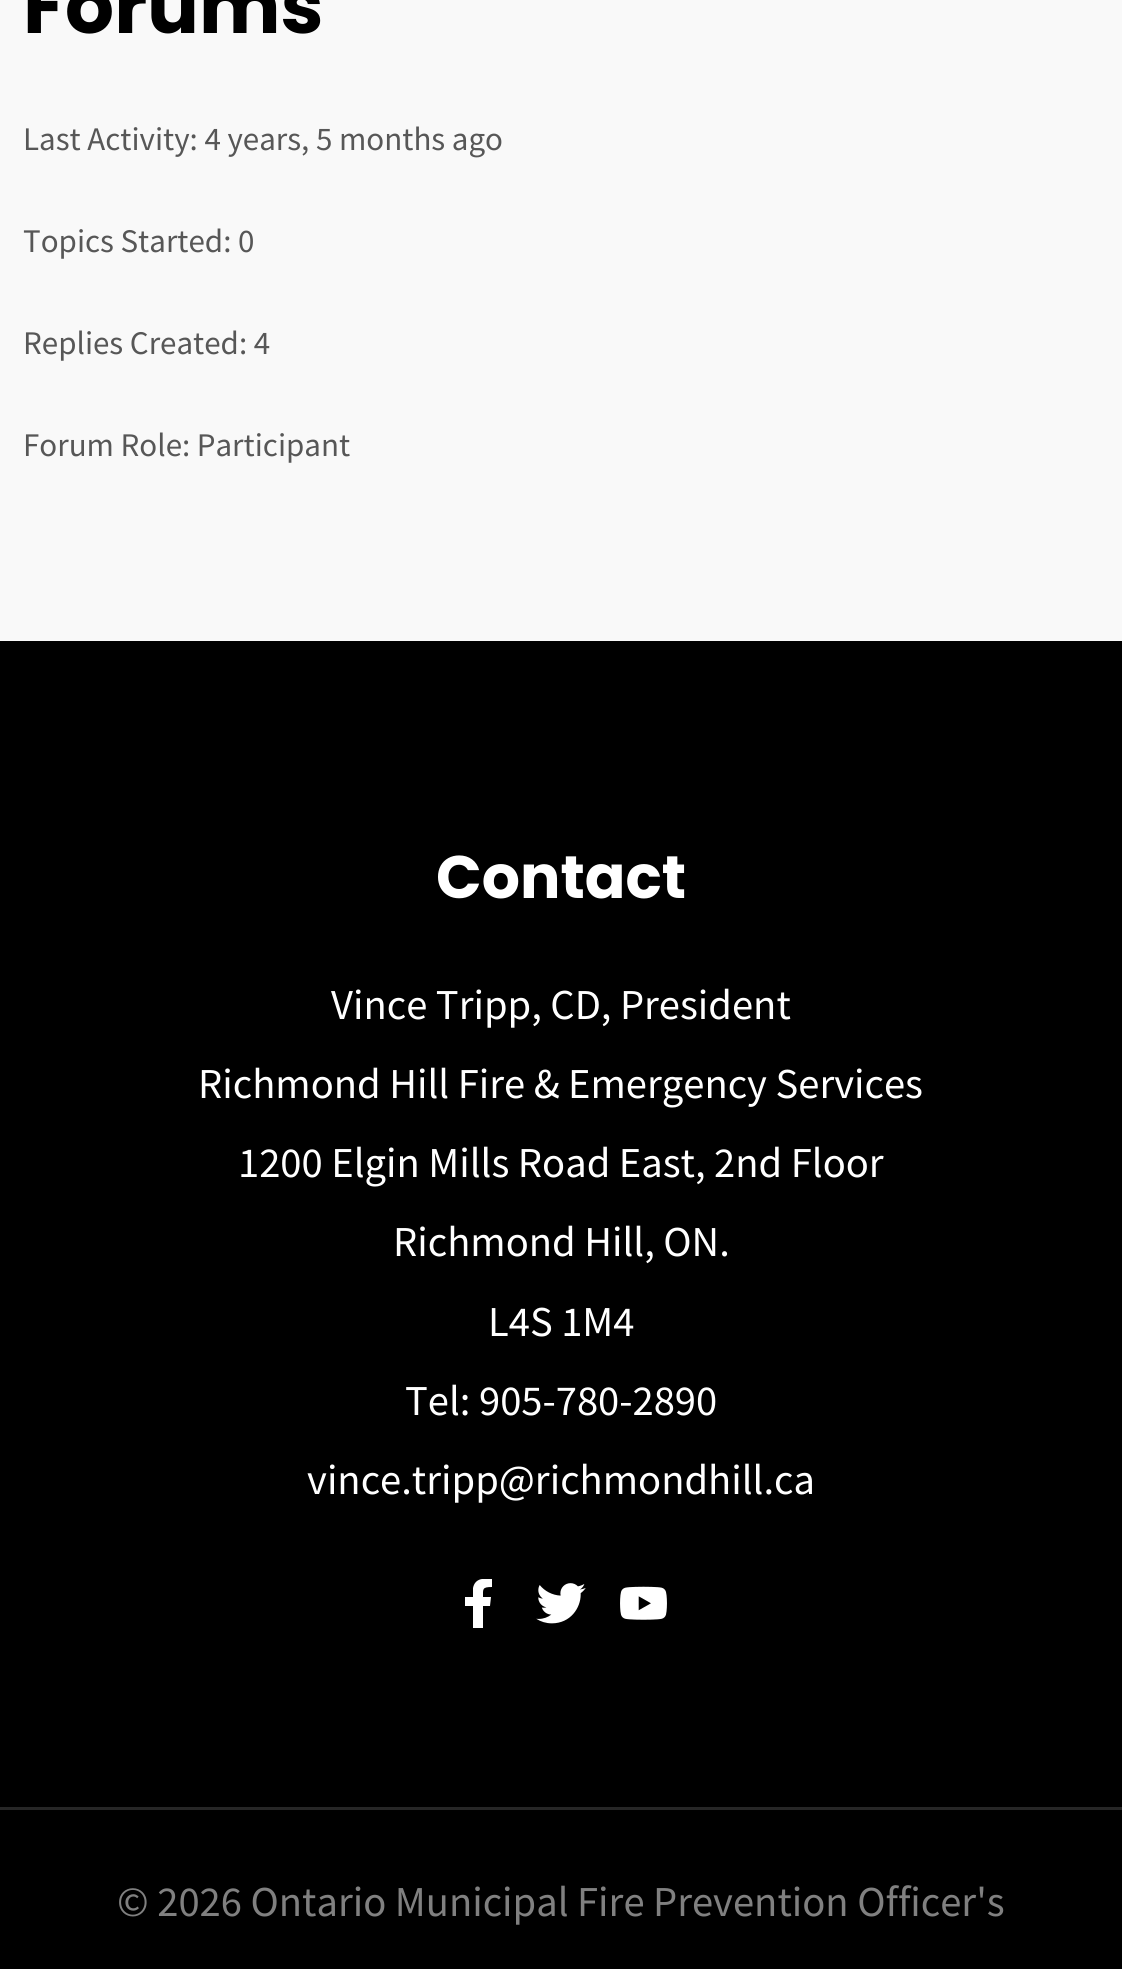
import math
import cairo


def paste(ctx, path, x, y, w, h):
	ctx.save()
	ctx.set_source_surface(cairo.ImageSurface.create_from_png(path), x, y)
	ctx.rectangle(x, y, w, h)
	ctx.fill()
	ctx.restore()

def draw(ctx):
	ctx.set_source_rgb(0.973, 0.973, 0.973)
	ctx.paint()
	ctx.select_font_face('Poppins', cairo.FONT_SLANT_NORMAL, cairo.FONT_WEIGHT_BOLD)
	ctx.set_font_size(77)
	ctx.set_source_rgb(0, 0, 0)
	ctx.move_to(23, 33)
	ctx.show_text('Forums')
	ctx.select_font_face('Source Sans Pro')
	ctx.set_font_size(33)
	ctx.set_source_rgb(0.341, 0.341, 0.341)
	for x, y, s in [
		(23, 150, 'Last Activity: 4 years, 5 months ago'),
		(23, 252, 'Topics Started: 0'),
		(23, 354, 'Replies Created: 4'),
		(23, 456, 'Forum Role: Participant'),
	]:
		ctx.move_to(x, y)
		ctx.show_text(s)
	ctx.set_source_rgb(0, 0, 0)
	ctx.rectangle(0, 641, 1122, 1328)
	ctx.fill()
	ctx.select_font_face('Poppins', cairo.FONT_SLANT_NORMAL, cairo.FONT_WEIGHT_BOLD)
	ctx.set_font_size(60)
	ctx.set_source_rgb(1, 1, 1)
	ctx.move_to(436, 898)
	ctx.show_text('Contact')
	ctx.select_font_face('Source Sans Pro')
	ctx.set_font_size(42.6)
	for x, y, s in [
		(331, 1019, 'Vince Tripp, CD, President'),
		(198, 1098, 'Richmond Hill Fire & Emergency Services'),
		(238, 1177, '1200 Elgin Mills Road East, 2nd Floor'),
		(393, 1256, 'Richmond Hill, ON.'),
		(488, 1336, 'L4S 1M4'),
		(405, 1415, 'Tel: 905-780-2890'),
		(307, 1494, 'vince.tripp@richmondhill.ca'),
	]:
		ctx.move_to(x, y)
		ctx.show_text(s)
	ctx.save()
	ctx.rectangle(454, 1579, 49, 49)
	ctx.clip()
	ctx.new_path()
	ctx.move_to(490, 1606)
	ctx.line_to(491, 1597)
	ctx.line_to(483, 1597)
	ctx.curve_to(483, 1589, 482, 1587, 492, 1587)
	ctx.line_to(492, 1579)
	ctx.curve_to(484, 1578, 475, 1578, 473, 1588)
	ctx.line_to(473, 1597)
	ctx.line_to(465, 1597)
	ctx.line_to(465, 1606)
	ctx.line_to(473, 1606)
	ctx.line_to(473, 1628)
	ctx.line_to(483, 1628)
	ctx.line_to(483, 1606)
	ctx.close_path()
	ctx.fill()
	ctx.restore()
	paste(ctx, 'media/1.png', 536, 1583, 50, 41)
	paste(ctx, 'media/2.png', 620, 1586, 47, 34)
	ctx.set_source_rgb(0.149, 0.149, 0.149)
	ctx.rectangle(0, 1807, 1122, 3)
	ctx.fill()
	ctx.set_source_rgb(0.502, 0.502, 0.502)
	ctx.move_to(117, 1916)
	ctx.show_text('© 2026 Ontario Municipal Fire Prevention Officer\'s')


surface = cairo.ImageSurface(cairo.FORMAT_RGB24, 1122, 1969)
ctx = cairo.Context(surface)
options = cairo.FontOptions()
options.set_hint_metrics(cairo.HINT_METRICS_OFF)
options.set_hint_style(cairo.HINT_STYLE_NONE)
ctx.set_font_options(options)
ctx.set_miter_limit(4)
draw(ctx)
surface.write_to_png('image.png')
